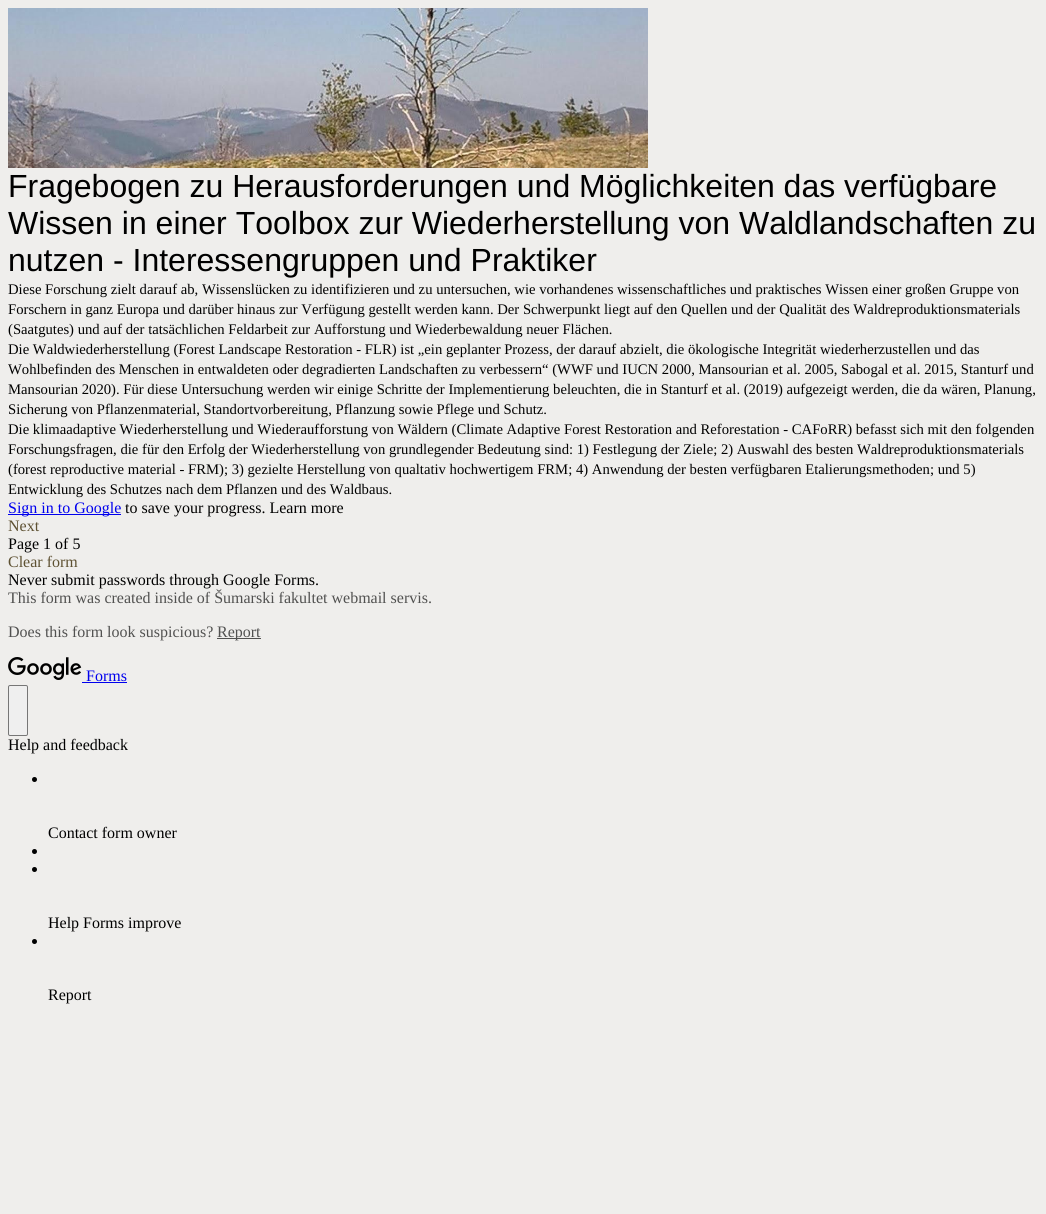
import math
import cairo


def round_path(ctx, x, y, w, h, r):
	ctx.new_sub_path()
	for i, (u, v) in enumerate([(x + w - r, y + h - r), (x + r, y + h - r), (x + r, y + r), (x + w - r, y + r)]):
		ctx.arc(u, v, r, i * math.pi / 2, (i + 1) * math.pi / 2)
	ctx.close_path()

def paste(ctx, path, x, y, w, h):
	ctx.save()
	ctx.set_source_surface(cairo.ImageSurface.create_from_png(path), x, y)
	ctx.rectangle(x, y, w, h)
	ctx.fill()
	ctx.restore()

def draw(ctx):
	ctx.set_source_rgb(0.937, 0.933, 0.922)
	ctx.paint()
	paste(ctx, 'media/1.png', 8, 8, 640, 160)
	ctx.select_font_face('Liberation Sans')
	ctx.set_font_size(32)
	ctx.set_source_rgb(0, 0, 0)
	for x, y, s in [
		(8, 197, 'Fragebogen zu Herausforderungen und Möglichkeiten das verfügbare'),
		(8, 234, 'Wissen in einer Toolbox zur Wiederherstellung von Waldlandschaften zu'),
		(8, 271, 'nutzen - Interessengruppen und Praktiker'),
	]:
		ctx.move_to(x, y)
		ctx.show_text(s)
	ctx.select_font_face('Liberation Serif')
	ctx.set_font_size(14.67)
	for x, y, s in [
		(8, 294, 'Diese Forschung zielt darauf ab, Wissenslücken zu identifizieren und zu untersuchen, wie vorhandenes wissenschaftliches und praktisches Wissen einer großen Gruppe von'),
		(8, 314, 'Forschern in ganz Europa und darüber hinaus zur Verfügung gestellt werden kann. Der Schwerpunkt liegt auf den Quellen und der Qualität des Waldreproduktionsmaterials'),
		(8, 334, '(Saatgutes) und auf der tatsächlichen Feldarbeit zur Aufforstung und Wiederbewaldung neuer Flächen.'),
		(8, 354, 'Die Waldwiederherstellung (Forest Landscape Restoration - FLR) ist „ein geplanter Prozess, der darauf abzielt, die ökologische Integrität wiederherzustellen und das'),
		(8, 374, 'Wohlbefinden des Menschen in entwaldeten oder degradierten Landschaften zu verbessern“ (WWF und IUCN 2000, Mansourian et al. 2005, Sabogal et al. 2015, Stanturf und'),
		(8, 394, 'Mansourian 2020). Für diese Untersuchung werden wir einige Schritte der Implementierung beleuchten, die in Stanturf et al. (2019) aufgezeigt werden, die da wären, Planung,'),
		(8, 414, 'Sicherung von Pflanzenmaterial, Standortvorbereitung, Pflanzung sowie Pflege und Schutz.'),
		(8, 434, 'Die klimaadaptive Wiederherstellung und Wiederaufforstung von Wäldern (Climate Adaptive Forest Restoration and Reforestation - CAFoRR) befasst sich mit den folgenden'),
		(8, 454, 'Forschungsfragen, die für den Erfolg der Wiederherstellung von grundlegender Bedeutung sind: 1) Festlegung der Ziele; 2) Auswahl des besten Waldreproduktionsmaterials'),
		(8, 474, '(forest reproductive material - FRM); 3) gezielte Herstellung von qualtativ hochwertigem FRM; 4) Anwendung der besten verfügbaren Etalierungsmethoden; und 5)'),
		(8, 494, 'Entwicklung des Schutzes nach dem Pflanzen und des Waldbaus.'),
	]:
		ctx.move_to(x, y)
		ctx.show_text(s)
	ctx.set_source_rgb(0, 0, 0.933)
	ctx.rectangle(8, 514, 113, 1)
	ctx.fill()
	ctx.set_font_size(16)
	ctx.move_to(8, 513)
	ctx.show_text('Sign in to Google')
	ctx.set_source_rgb(0, 0, 0)
	ctx.move_to(125, 513)
	ctx.show_text('to save your progress. Learn more')
	ctx.set_source_rgb(0.369, 0.318, 0.196)
	ctx.move_to(8, 531)
	ctx.show_text('Next')
	ctx.set_source_rgb(0, 0, 0)
	ctx.move_to(8, 549)
	ctx.show_text('Page 1 of 5')
	ctx.set_source_rgb(0.369, 0.318, 0.196)
	ctx.move_to(8, 567)
	ctx.show_text('Clear form')
	ctx.set_source_rgb(0, 0, 0)
	ctx.move_to(8, 585)
	ctx.show_text('Never submit passwords through Google Forms.')
	ctx.set_source_rgb(0.318, 0.318, 0.314)
	ctx.move_to(8, 603)
	ctx.show_text('This form was created inside of Šumarski fakultet webmail servis.')
	ctx.move_to(8, 637)
	ctx.show_text('Does this form look suspicious?')
	ctx.rectangle(217, 638, 44, 1)
	ctx.fill()
	ctx.move_to(217, 637)
	ctx.show_text('Report')
	paste(ctx, 'media/2.png', 8, 657, 74, 23)
	ctx.set_source_rgb(0, 0, 0.933)
	ctx.move_to(86, 681)
	ctx.show_text('Forms')
	ctx.rectangle(82, 682, 45, 1)
	ctx.fill()
	ctx.set_source_rgb(0.937, 0.937, 0.937)
	round_path(ctx, 8.5, 685.5, 19, 50, 1.5)
	ctx.fill_preserve()
	ctx.set_source_rgb(0.463, 0.463, 0.463)
	ctx.set_line_width(1)
	ctx.stroke()
	ctx.set_source_rgb(0, 0, 0)
	ctx.move_to(8, 750)
	ctx.show_text('Help and feedback')
	ctx.new_path()
	ctx.arc(34.5, 779.5, 2.5, 0, 2 * math.pi)
	ctx.fill()
	ctx.move_to(48, 838)
	ctx.show_text('Contact form owner')
	ctx.new_path()
	ctx.arc(34.5, 851.5, 2.5, 0, 2 * math.pi)
	ctx.fill()
	ctx.arc(34.5, 869.5, 2.5, 0, 2 * math.pi)
	ctx.fill()
	ctx.move_to(48, 928)
	ctx.show_text('Help Forms improve')
	ctx.new_path()
	ctx.arc(34.5, 941.5, 2.5, 0, 2 * math.pi)
	ctx.fill()
	ctx.move_to(48, 1000)
	ctx.show_text('Report')


surface = cairo.ImageSurface(cairo.FORMAT_RGB24, 1046, 1214)
ctx = cairo.Context(surface)
options = cairo.FontOptions()
options.set_hint_metrics(cairo.HINT_METRICS_OFF)
options.set_hint_style(cairo.HINT_STYLE_NONE)
ctx.set_font_options(options)
ctx.set_miter_limit(4)
draw(ctx)
surface.write_to_png('image.png')
